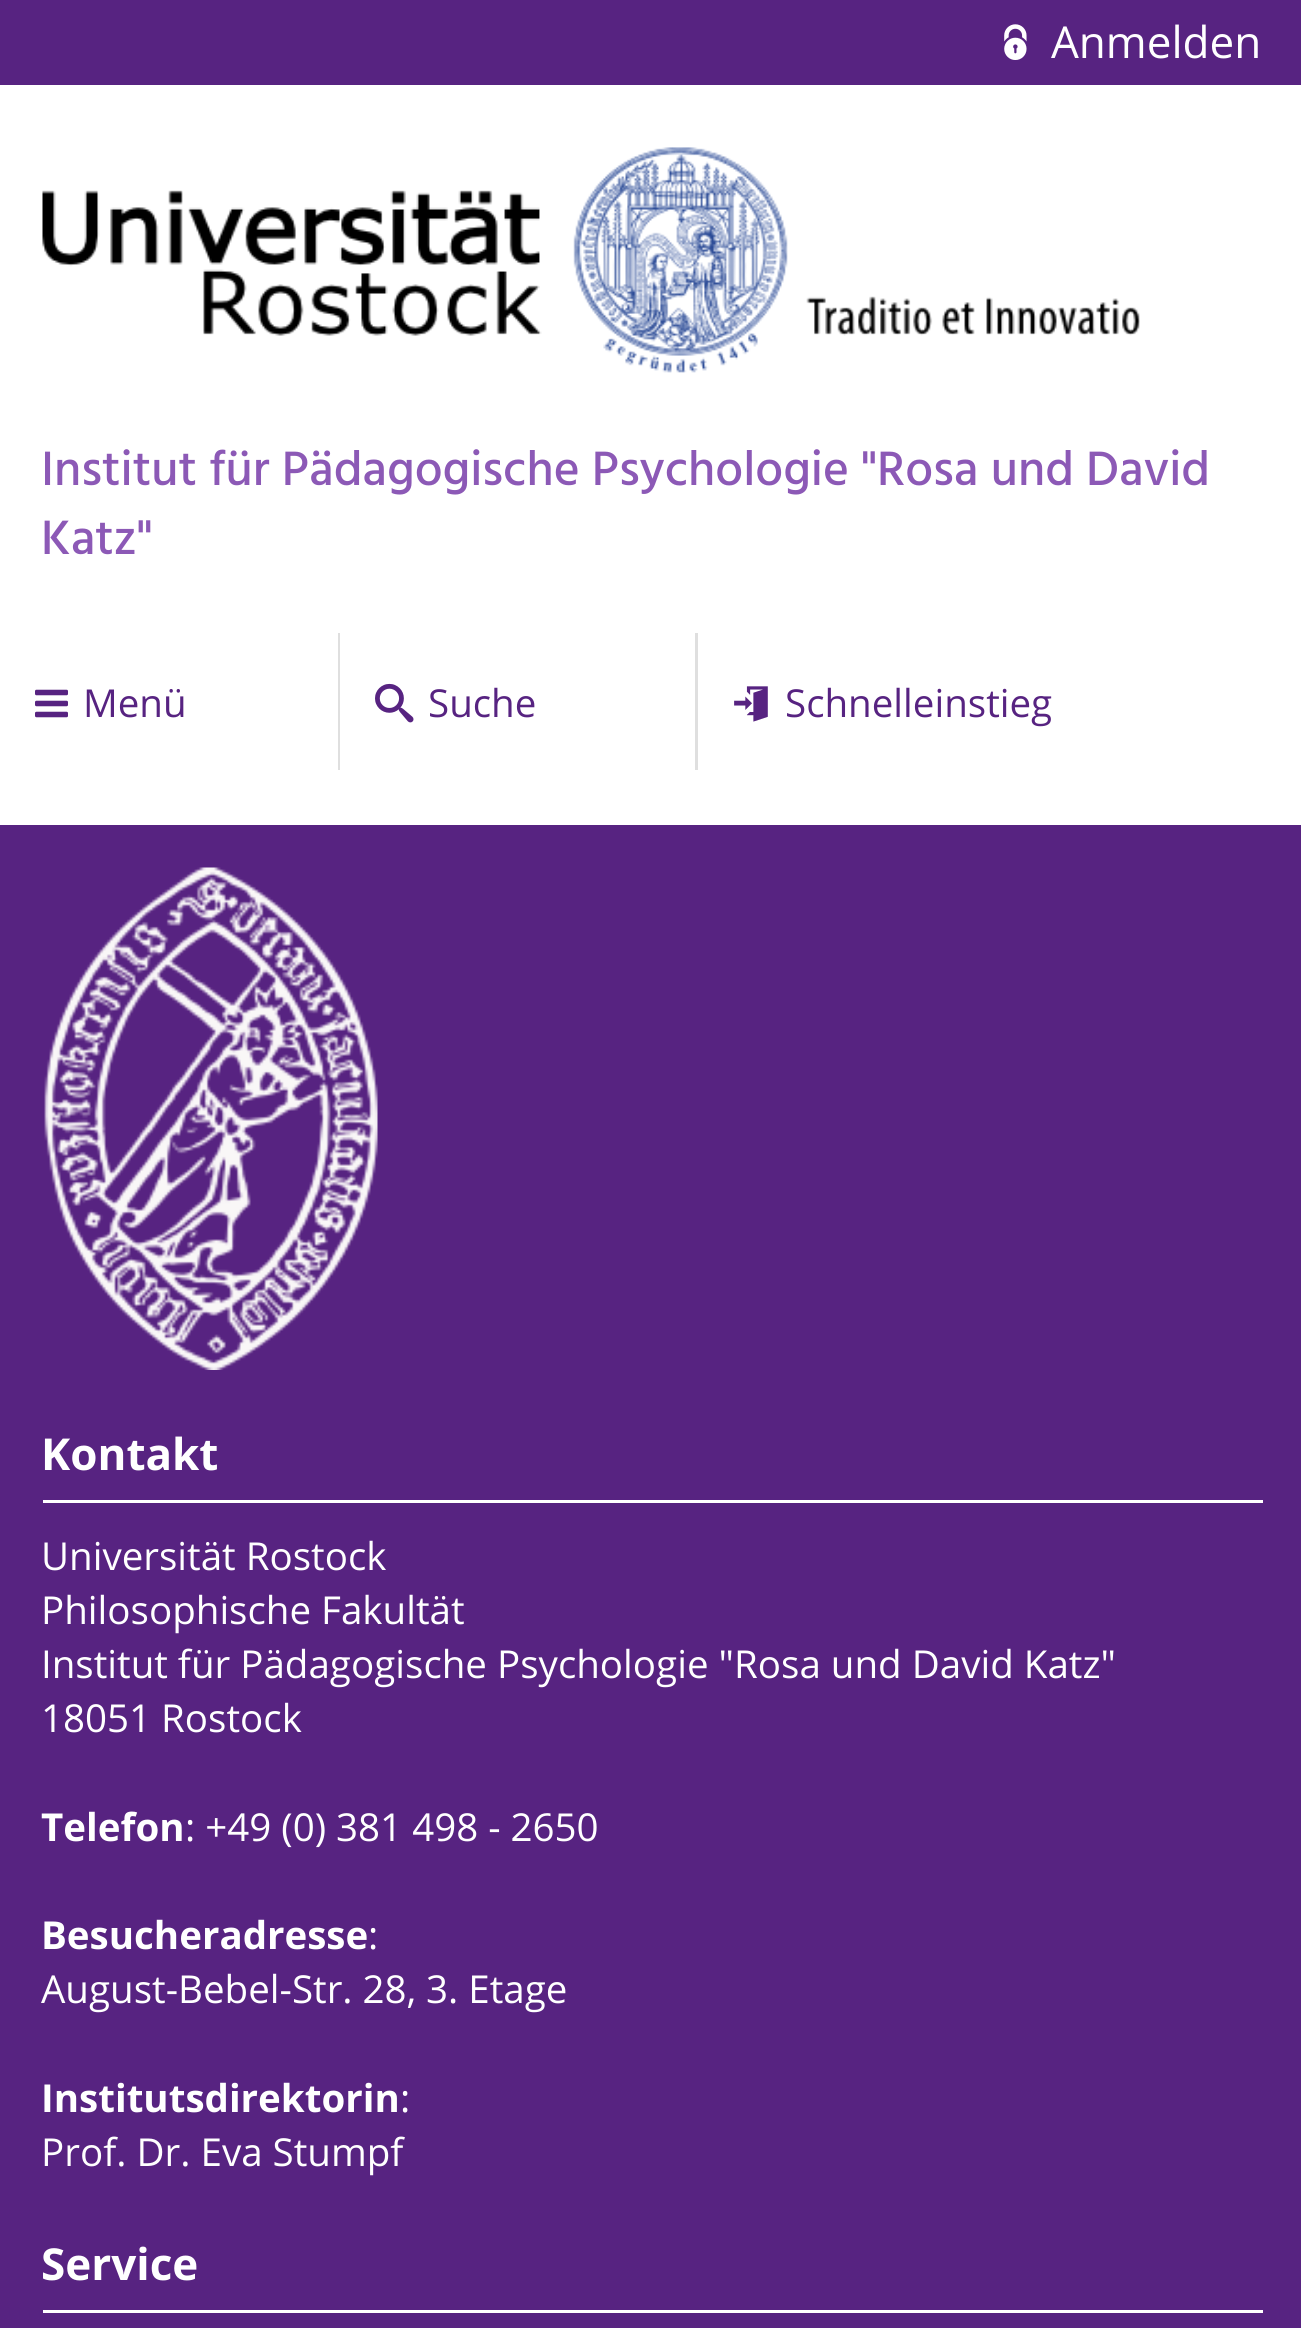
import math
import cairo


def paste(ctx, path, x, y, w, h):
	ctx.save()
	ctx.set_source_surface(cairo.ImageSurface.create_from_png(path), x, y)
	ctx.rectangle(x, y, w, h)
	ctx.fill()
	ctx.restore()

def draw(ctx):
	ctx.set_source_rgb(1, 1, 1)
	ctx.paint()
	ctx.set_source_rgb(0.341, 0.137, 0.506)
	ctx.rectangle(0, 0, 1301, 85)
	ctx.fill()
	paste(ctx, 'media/1.png', 1004, 24, 23, 36)
	ctx.select_font_face('Open Sans')
	ctx.set_font_size(44)
	ctx.set_source_rgb(1, 1, 1)
	ctx.move_to(1051, 58)
	ctx.show_text('Anmelden')
	paste(ctx, 'media/2.png', 42, 147, 1098, 226)
	ctx.select_font_face('Hind Medium')
	ctx.set_font_size(49.5)
	ctx.set_source_rgb(0.549, 0.349, 0.714)
	ctx.move_to(41, 485)
	ctx.show_text('Institut für Pädagogische Psychologie "Rosa und David')
	ctx.move_to(41, 554)
	ctx.show_text('Katz"')
	paste(ctx, 'media/3.png', 35, 689, 33, 29)
	ctx.select_font_face('Open Sans')
	ctx.set_font_size(38.5)
	ctx.set_source_rgb(0.341, 0.137, 0.506)
	ctx.move_to(83, 717)
	ctx.show_text('Menü')
	ctx.set_source_rgb(0.875, 0.875, 0.875)
	ctx.rectangle(338, 633, 2, 137)
	ctx.fill()
	paste(ctx, 'media/4.png', 375, 683, 39, 40)
	ctx.set_source_rgb(0.341, 0.137, 0.506)
	ctx.move_to(428, 717)
	ctx.show_text('Suche')
	ctx.set_source_rgb(0.875, 0.875, 0.875)
	ctx.rectangle(695, 633, 3, 137)
	ctx.fill()
	paste(ctx, 'media/5.png', 734, 686, 34, 36)
	ctx.set_source_rgb(0.341, 0.137, 0.506)
	ctx.move_to(785, 717)
	ctx.show_text('Schnelleinstieg')
	ctx.rectangle(0, 825, 1301, 1503)
	ctx.fill()
	paste(ctx, 'media/6.png', 44, 867, 334, 503)
	ctx.set_source_rgb(1, 1, 1)
	ctx.rectangle(43, 1500, 1220, 3)
	ctx.fill()
	ctx.select_font_face('Open Sans', cairo.FONT_SLANT_NORMAL, cairo.FONT_WEIGHT_BOLD)
	ctx.set_font_size(44)
	ctx.move_to(41, 1470)
	ctx.show_text('Kontakt')
	ctx.select_font_face('Open Sans')
	ctx.set_font_size(38.5)
	for x, y, s in [
		(41, 1570, 'Universität Rostock'),
		(41, 1624, 'Philosophische Fakultät'),
		(41, 1678, 'Institut für Pädagogische Psychologie "Rosa und David Katz"'),
		(41, 1732, '18051 Rostock'),
	]:
		ctx.move_to(x, y)
		ctx.show_text(s)
	ctx.select_font_face('Open Sans', cairo.FONT_SLANT_NORMAL, cairo.FONT_WEIGHT_BOLD)
	ctx.move_to(41, 1841)
	ctx.show_text('Telefon')
	ctx.select_font_face('Open Sans')
	ctx.move_to(185, 1841)
	ctx.show_text(': +49 (0) 381 498 - 2650')
	ctx.select_font_face('Open Sans', cairo.FONT_SLANT_NORMAL, cairo.FONT_WEIGHT_BOLD)
	ctx.move_to(41, 1949)
	ctx.show_text('Besucheradresse')
	ctx.select_font_face('Open Sans')
	ctx.move_to(368, 1949)
	ctx.show_text(':')
	ctx.move_to(41, 2003)
	ctx.show_text('August-Bebel-Str. 28, 3. Etage')
	ctx.select_font_face('Open Sans', cairo.FONT_SLANT_NORMAL, cairo.FONT_WEIGHT_BOLD)
	ctx.move_to(41, 2112)
	ctx.show_text('Institutsdirektorin')
	ctx.select_font_face('Open Sans')
	ctx.move_to(400, 2112)
	ctx.show_text(':')
	ctx.move_to(41, 2166)
	ctx.show_text('Prof. Dr. Eva Stumpf')
	ctx.rectangle(43, 2310, 1220, 3)
	ctx.fill()
	ctx.select_font_face('Open Sans', cairo.FONT_SLANT_NORMAL, cairo.FONT_WEIGHT_BOLD)
	ctx.set_font_size(44)
	ctx.move_to(41, 2280)
	ctx.show_text('Service')


surface = cairo.ImageSurface(cairo.FORMAT_RGB24, 1301, 2328)
ctx = cairo.Context(surface)
options = cairo.FontOptions()
options.set_hint_metrics(cairo.HINT_METRICS_OFF)
options.set_hint_style(cairo.HINT_STYLE_NONE)
ctx.set_font_options(options)
ctx.set_miter_limit(4)
draw(ctx)
surface.write_to_png('image.png')
